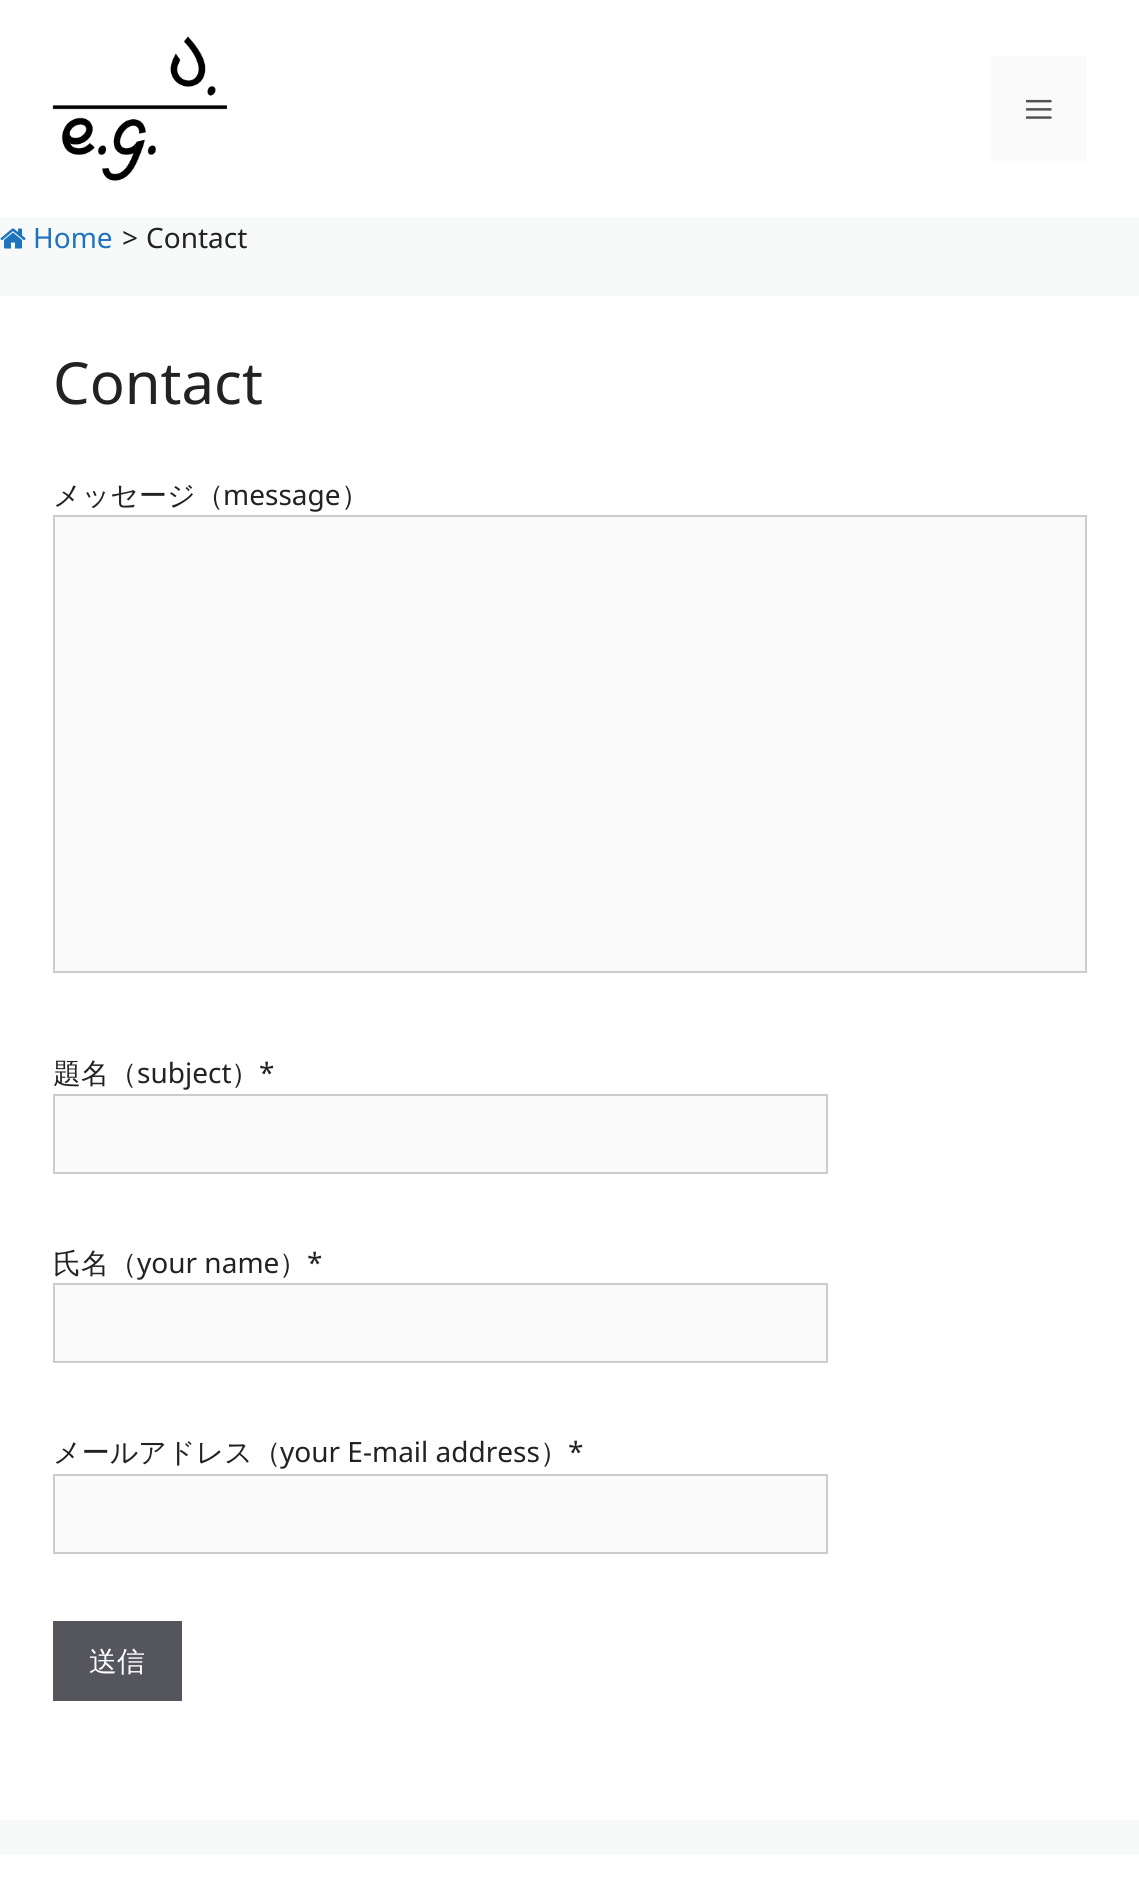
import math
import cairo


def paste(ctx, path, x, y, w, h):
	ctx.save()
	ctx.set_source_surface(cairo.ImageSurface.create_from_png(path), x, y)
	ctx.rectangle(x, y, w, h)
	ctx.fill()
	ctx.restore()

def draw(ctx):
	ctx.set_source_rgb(0.969, 0.973, 0.976)
	ctx.paint()
	ctx.set_source_rgb(1, 1, 1)
	ctx.rectangle(0, 0, 1139, 217)
	ctx.fill()
	paste(ctx, 'media/1.png', 52, 36, 175, 145)
	ctx.set_source_rgb(0.98, 0.98, 0.98)
	ctx.rectangle(991, 56, 96, 105)
	ctx.fill()
	paste(ctx, 'media/2.png', 1026, 99, 26, 20)
	paste(ctx, 'media/3.png', 0, 228, 26, 21)
	ctx.select_font_face('Noto Sans')
	ctx.set_font_size(28)
	ctx.set_source_rgb(0.118, 0.451, 0.745)
	ctx.move_to(33, 248)
	ctx.show_text('Home')
	ctx.set_source_rgb(0.133, 0.133, 0.133)
	ctx.move_to(122, 248)
	ctx.show_text('>')
	ctx.move_to(146, 248)
	ctx.show_text('Contact')
	ctx.set_source_rgb(1, 1, 1)
	ctx.rectangle(0, 296, 1139, 1524)
	ctx.fill()
	ctx.set_font_size(58)
	ctx.set_source_rgb(0.133, 0.133, 0.133)
	ctx.move_to(53, 404)
	ctx.show_text('Contact')
	ctx.select_font_face('WenQuanYi Zen Hei Medium')
	ctx.set_font_size(28)
	ctx.move_to(53, 505)
	ctx.show_text('メッセージ（')
	ctx.select_font_face('Noto Sans')
	ctx.move_to(223, 505)
	ctx.show_text('message')
	ctx.select_font_face('WenQuanYi Zen Hei Medium')
	ctx.move_to(341, 505)
	ctx.show_text('）')
	ctx.set_source_rgb(0.98, 0.98, 0.98)
	ctx.rectangle(54, 516, 1032, 456)
	ctx.fill_preserve()
	ctx.set_source_rgb(0.8, 0.8, 0.8)
	ctx.stroke()
	ctx.set_source_rgb(0.133, 0.133, 0.133)
	ctx.move_to(53, 1083)
	ctx.show_text('題名（')
	ctx.select_font_face('Noto Sans')
	ctx.move_to(137, 1083)
	ctx.show_text('subject')
	ctx.select_font_face('WenQuanYi Zen Hei Medium')
	ctx.move_to(231, 1083)
	ctx.show_text('）')
	ctx.select_font_face('Noto Sans')
	ctx.move_to(259, 1083)
	ctx.show_text('*')
	ctx.set_source_rgb(0.98, 0.98, 0.98)
	ctx.rectangle(54, 1095, 773, 78)
	ctx.fill_preserve()
	ctx.set_source_rgb(0.8, 0.8, 0.8)
	ctx.stroke()
	ctx.select_font_face('WenQuanYi Zen Hei Medium')
	ctx.set_source_rgb(0.133, 0.133, 0.133)
	ctx.move_to(53, 1273)
	ctx.show_text('氏名（')
	ctx.select_font_face('Noto Sans')
	ctx.move_to(137, 1273)
	ctx.show_text('your name')
	ctx.select_font_face('WenQuanYi Zen Hei Medium')
	ctx.move_to(279, 1273)
	ctx.show_text('）')
	ctx.select_font_face('Noto Sans')
	ctx.move_to(307, 1273)
	ctx.show_text('*')
	ctx.set_source_rgb(0.98, 0.98, 0.98)
	ctx.rectangle(54, 1284, 773, 78)
	ctx.fill_preserve()
	ctx.set_source_rgb(0.8, 0.8, 0.8)
	ctx.stroke()
	ctx.select_font_face('WenQuanYi Zen Hei Medium')
	ctx.set_source_rgb(0.133, 0.133, 0.133)
	ctx.move_to(53, 1462)
	ctx.show_text('メールアドレス（')
	ctx.select_font_face('Noto Sans')
	ctx.move_to(280, 1462)
	ctx.show_text('your E-mail address')
	ctx.select_font_face('WenQuanYi Zen Hei Medium')
	ctx.move_to(540, 1462)
	ctx.show_text('）')
	ctx.select_font_face('Noto Sans')
	ctx.move_to(568, 1462)
	ctx.show_text('*')
	ctx.set_source_rgb(0.98, 0.98, 0.98)
	ctx.rectangle(54, 1475, 773, 78)
	ctx.fill_preserve()
	ctx.set_source_rgb(0.8, 0.8, 0.8)
	ctx.stroke()
	ctx.set_source_rgb(0.333, 0.333, 0.369)
	ctx.rectangle(53, 1621, 129, 80)
	ctx.fill()
	ctx.select_font_face('WenQuanYi Zen Hei Medium')
	ctx.set_source_rgb(1, 1, 1)
	ctx.move_to(89, 1671)
	ctx.show_text('送信')
	ctx.rectangle(0, 1855, 1139, 34)
	ctx.fill()


surface = cairo.ImageSurface(cairo.FORMAT_RGB24, 1139, 1889)
ctx = cairo.Context(surface)
options = cairo.FontOptions()
options.set_hint_metrics(cairo.HINT_METRICS_OFF)
options.set_hint_style(cairo.HINT_STYLE_NONE)
ctx.set_font_options(options)
ctx.set_miter_limit(4)
draw(ctx)
surface.write_to_png('image.png')
